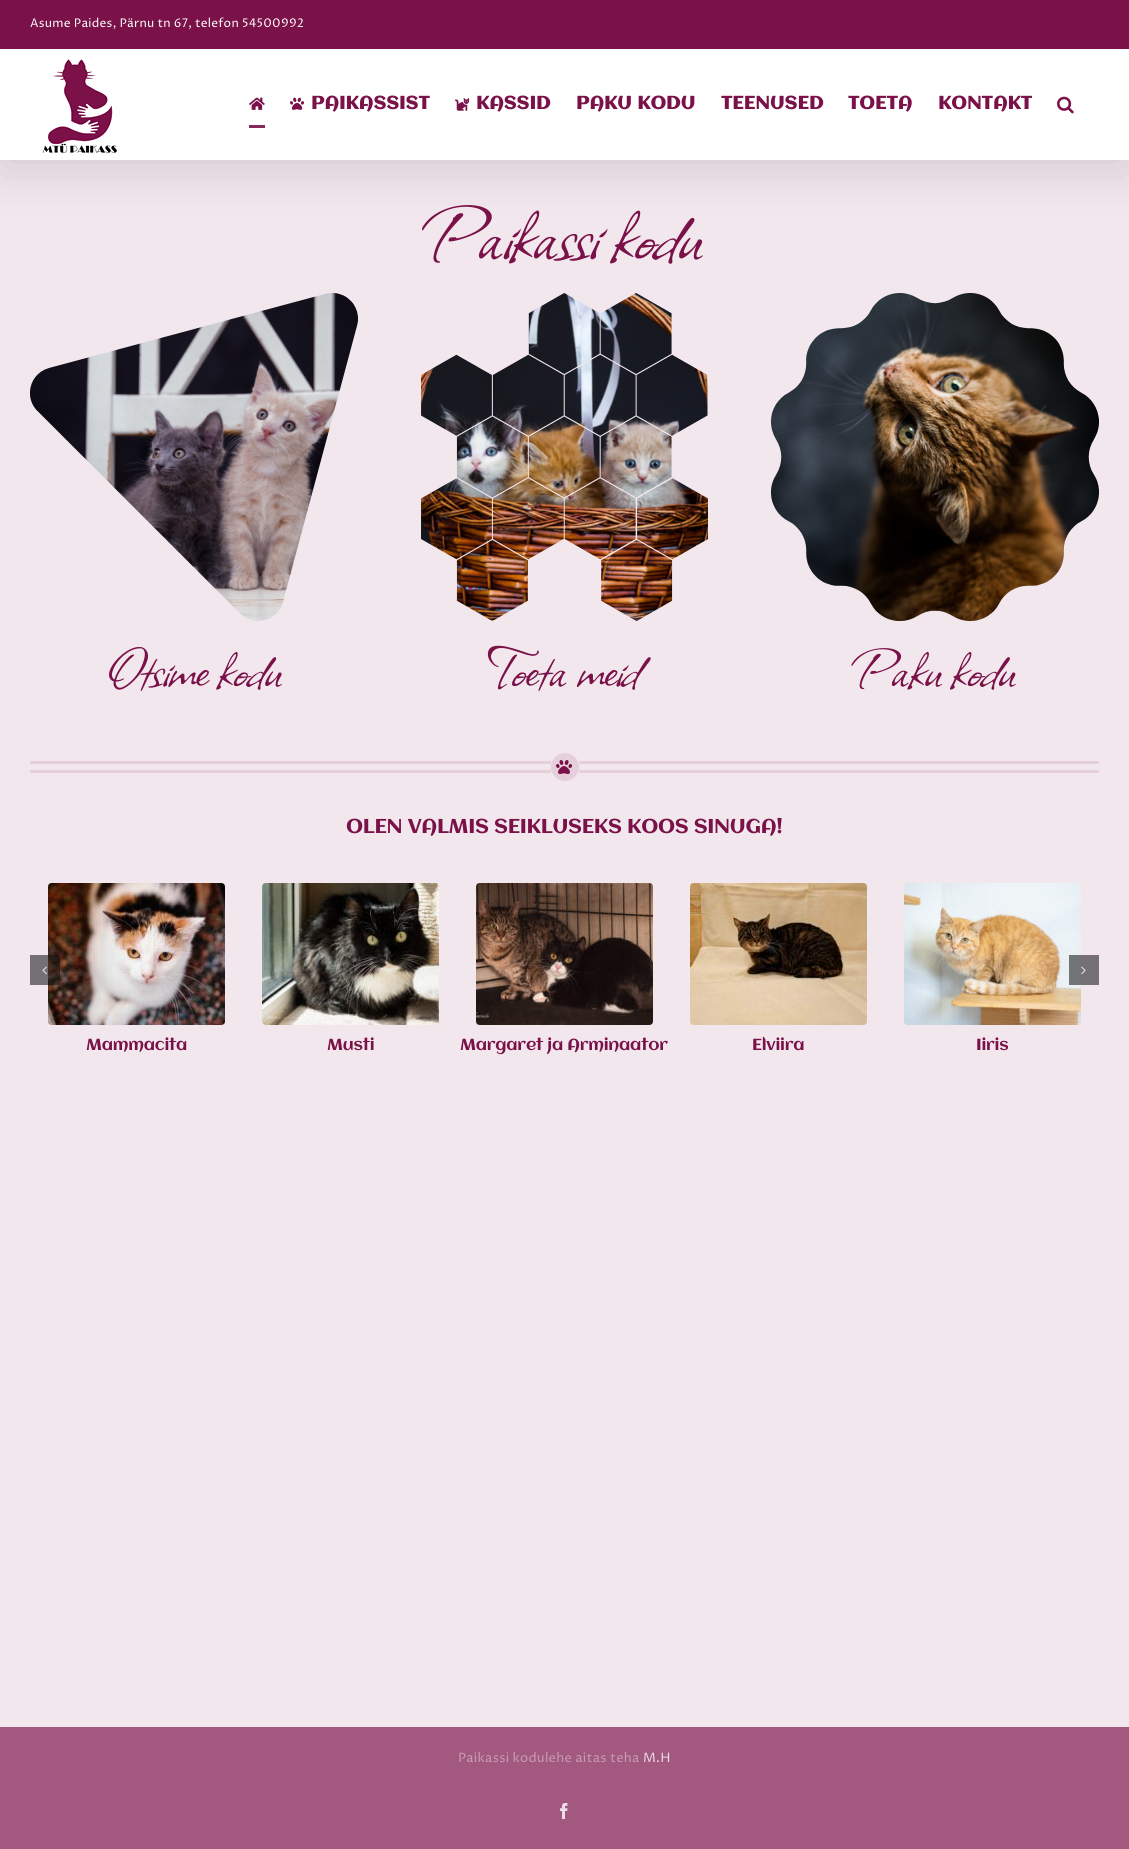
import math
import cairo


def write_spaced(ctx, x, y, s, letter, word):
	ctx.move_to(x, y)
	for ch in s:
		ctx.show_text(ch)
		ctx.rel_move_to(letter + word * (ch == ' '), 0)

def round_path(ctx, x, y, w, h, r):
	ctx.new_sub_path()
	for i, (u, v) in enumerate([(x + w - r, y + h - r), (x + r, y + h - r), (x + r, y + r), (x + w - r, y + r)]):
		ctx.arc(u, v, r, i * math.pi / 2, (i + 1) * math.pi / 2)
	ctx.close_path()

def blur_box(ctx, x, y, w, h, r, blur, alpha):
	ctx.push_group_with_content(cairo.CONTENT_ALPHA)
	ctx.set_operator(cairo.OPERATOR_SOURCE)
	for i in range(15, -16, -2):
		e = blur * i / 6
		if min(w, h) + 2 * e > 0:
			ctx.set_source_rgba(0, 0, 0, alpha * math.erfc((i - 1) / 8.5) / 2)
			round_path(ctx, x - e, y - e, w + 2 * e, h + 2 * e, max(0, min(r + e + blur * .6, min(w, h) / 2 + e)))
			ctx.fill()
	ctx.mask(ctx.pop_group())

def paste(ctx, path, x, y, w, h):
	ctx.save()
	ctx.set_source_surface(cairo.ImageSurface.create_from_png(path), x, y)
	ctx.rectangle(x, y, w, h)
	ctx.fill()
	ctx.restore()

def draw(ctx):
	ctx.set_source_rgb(0.949, 0.906, 0.929)
	ctx.paint()
	ctx.set_source_rgb(0, 0, 0)
	blur_box(ctx, 2, 12, 1125, 156, 0, 25, 0.14)
	ctx.set_source_rgb(0.478, 0.067, 0.282)
	ctx.rectangle(0, 0, 1129, 49)
	ctx.fill()
	ctx.select_font_face('Proza Libre')
	ctx.set_font_size(12)
	ctx.set_source_rgb(1, 1, 1)
	write_spaced(ctx, 30, 27, 'Asume Paides, Pärnu tn 67, telefon 54500992', 0.25, 0)
	ctx.rectangle(0, 49, 1129, 111)
	ctx.fill()
	paste(ctx, 'media/1.png', 42, 59, 75, 95)
	paste(ctx, 'media/2.png', 249, 97, 16, 13)
	ctx.set_source_rgb(0.529, 0.161, 0.353)
	ctx.rectangle(249, 125, 16, 3)
	ctx.fill()
	paste(ctx, 'media/3.png', 290, 97, 14, 13)
	ctx.select_font_face('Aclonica', cairo.FONT_SLANT_NORMAL, cairo.FONT_WEIGHT_BOLD)
	ctx.set_font_size(18)
	ctx.set_source_rgb(0.478, 0.067, 0.282)
	write_spaced(ctx, 311, 109, 'PAIKASSIST', 0.25, 0)
	paste(ctx, 'media/4.png', 455, 97, 14, 14)
	for x, y, s in [
		(476, 109, 'KASSID'),
		(576, 109, 'PAKU KODU'),
		(721, 109, 'TEENUSED'),
		(848, 109, 'TOETA'),
		(938, 109, 'KONTAKT'),
	]:
		write_spaced(ctx, x, y, s, 0.25, 0)
	paste(ctx, 'media/5.png', 1057, 96, 17, 18)
	ctx.select_font_face('Allison')
	ctx.set_font_size(90)
	write_spaced(ctx, 427, 257, 'Paikassi kodu', -1.4, 0)
	paste(ctx, 'media/6.png', 30, 293, 328, 328)
	ctx.set_font_size(64)
	write_spaced(ctx, 106, 685, 'Otsime kodu', -1, 0)
	paste(ctx, 'media/7.png', 421, 293, 287, 328)
	write_spaced(ctx, 489, 685, 'Toeta meid', -1, 0)
	paste(ctx, 'media/8.png', 771, 293, 328, 328)
	write_spaced(ctx, 855, 685, 'Paku kodu', -1, 0)
	ctx.set_source_rgb(0.894, 0.812, 0.855)
	ctx.rectangle(30, 761, 521, 3)
	ctx.fill()
	ctx.rectangle(30, 770, 521, 3)
	ctx.fill()
	ctx.arc(565, 767, 12.5, 0, 2 * math.pi)
	ctx.fill_preserve()
	ctx.set_line_width(3)
	ctx.stroke()
	paste(ctx, 'media/9.png', 556, 760, 16, 14)
	ctx.rectangle(579, 761, 520, 3)
	ctx.fill()
	ctx.rectangle(579, 770, 520, 3)
	ctx.fill()
	ctx.select_font_face('Aclonica')
	ctx.set_font_size(20)
	ctx.set_source_rgb(0.478, 0.067, 0.282)
	write_spaced(ctx, 346, 833, 'OLEN VALMIS SEIKLUSEKS KOOS SINUGA!', -0.3, 0)
	paste(ctx, 'media/12.png', 48, 883, 177, 142)
	ctx.set_source_rgba(0.075, 0.082, 0.086, 0.56)
	ctx.rectangle(30, 955, 30, 30)
	ctx.fill()
	paste(ctx, 'media/10.png', 42, 966, 5, 9)
	paste(ctx, 'media/16.png', 904, 883, 177, 142)
	ctx.rectangle(1069, 955, 30, 30)
	ctx.fill()
	paste(ctx, 'media/11.png', 1081, 966, 5, 9)
	ctx.set_font_size(16)
	ctx.set_source_rgb(0.478, 0.067, 0.282)
	write_spaced(ctx, 86, 1050, 'Mammacita', -0.25, 0)
	paste(ctx, 'media/13.png', 262, 883, 177, 142)
	write_spaced(ctx, 327, 1050, 'Musti', -0.25, 0)
	paste(ctx, 'media/14.png', 476, 883, 177, 142)
	write_spaced(ctx, 460, 1050, 'Margaret ja Arminaator', -0.25, 0)
	paste(ctx, 'media/15.png', 690, 883, 177, 142)
	write_spaced(ctx, 752, 1050, 'Elviira', -0.25, 0)
	write_spaced(ctx, 976, 1050, 'Iiris', -0.25, 0)
	ctx.set_source_rgb(0.635, 0.345, 0.498)
	ctx.rectangle(0, 1727, 1129, 122)
	ctx.fill()
	ctx.select_font_face('Proza Libre')
	ctx.set_font_size(13)
	ctx.set_source_rgb(0.78, 0.608, 0.698)
	write_spaced(ctx, 458, 1762, 'Paikassi kodulehe aitas teha', 0.25, 0)
	ctx.set_source_rgb(0.925, 0.871, 0.898)
	write_spaced(ctx, 643, 1762, 'M.H', 0.25, 0)
	paste(ctx, 'media/17.png', 560, 1803, 8, 16)


surface = cairo.ImageSurface(cairo.FORMAT_RGB24, 1129, 1849)
ctx = cairo.Context(surface)
options = cairo.FontOptions()
options.set_hint_metrics(cairo.HINT_METRICS_OFF)
options.set_hint_style(cairo.HINT_STYLE_NONE)
ctx.set_font_options(options)
ctx.set_miter_limit(4)
draw(ctx)
surface.write_to_png('image.png')
